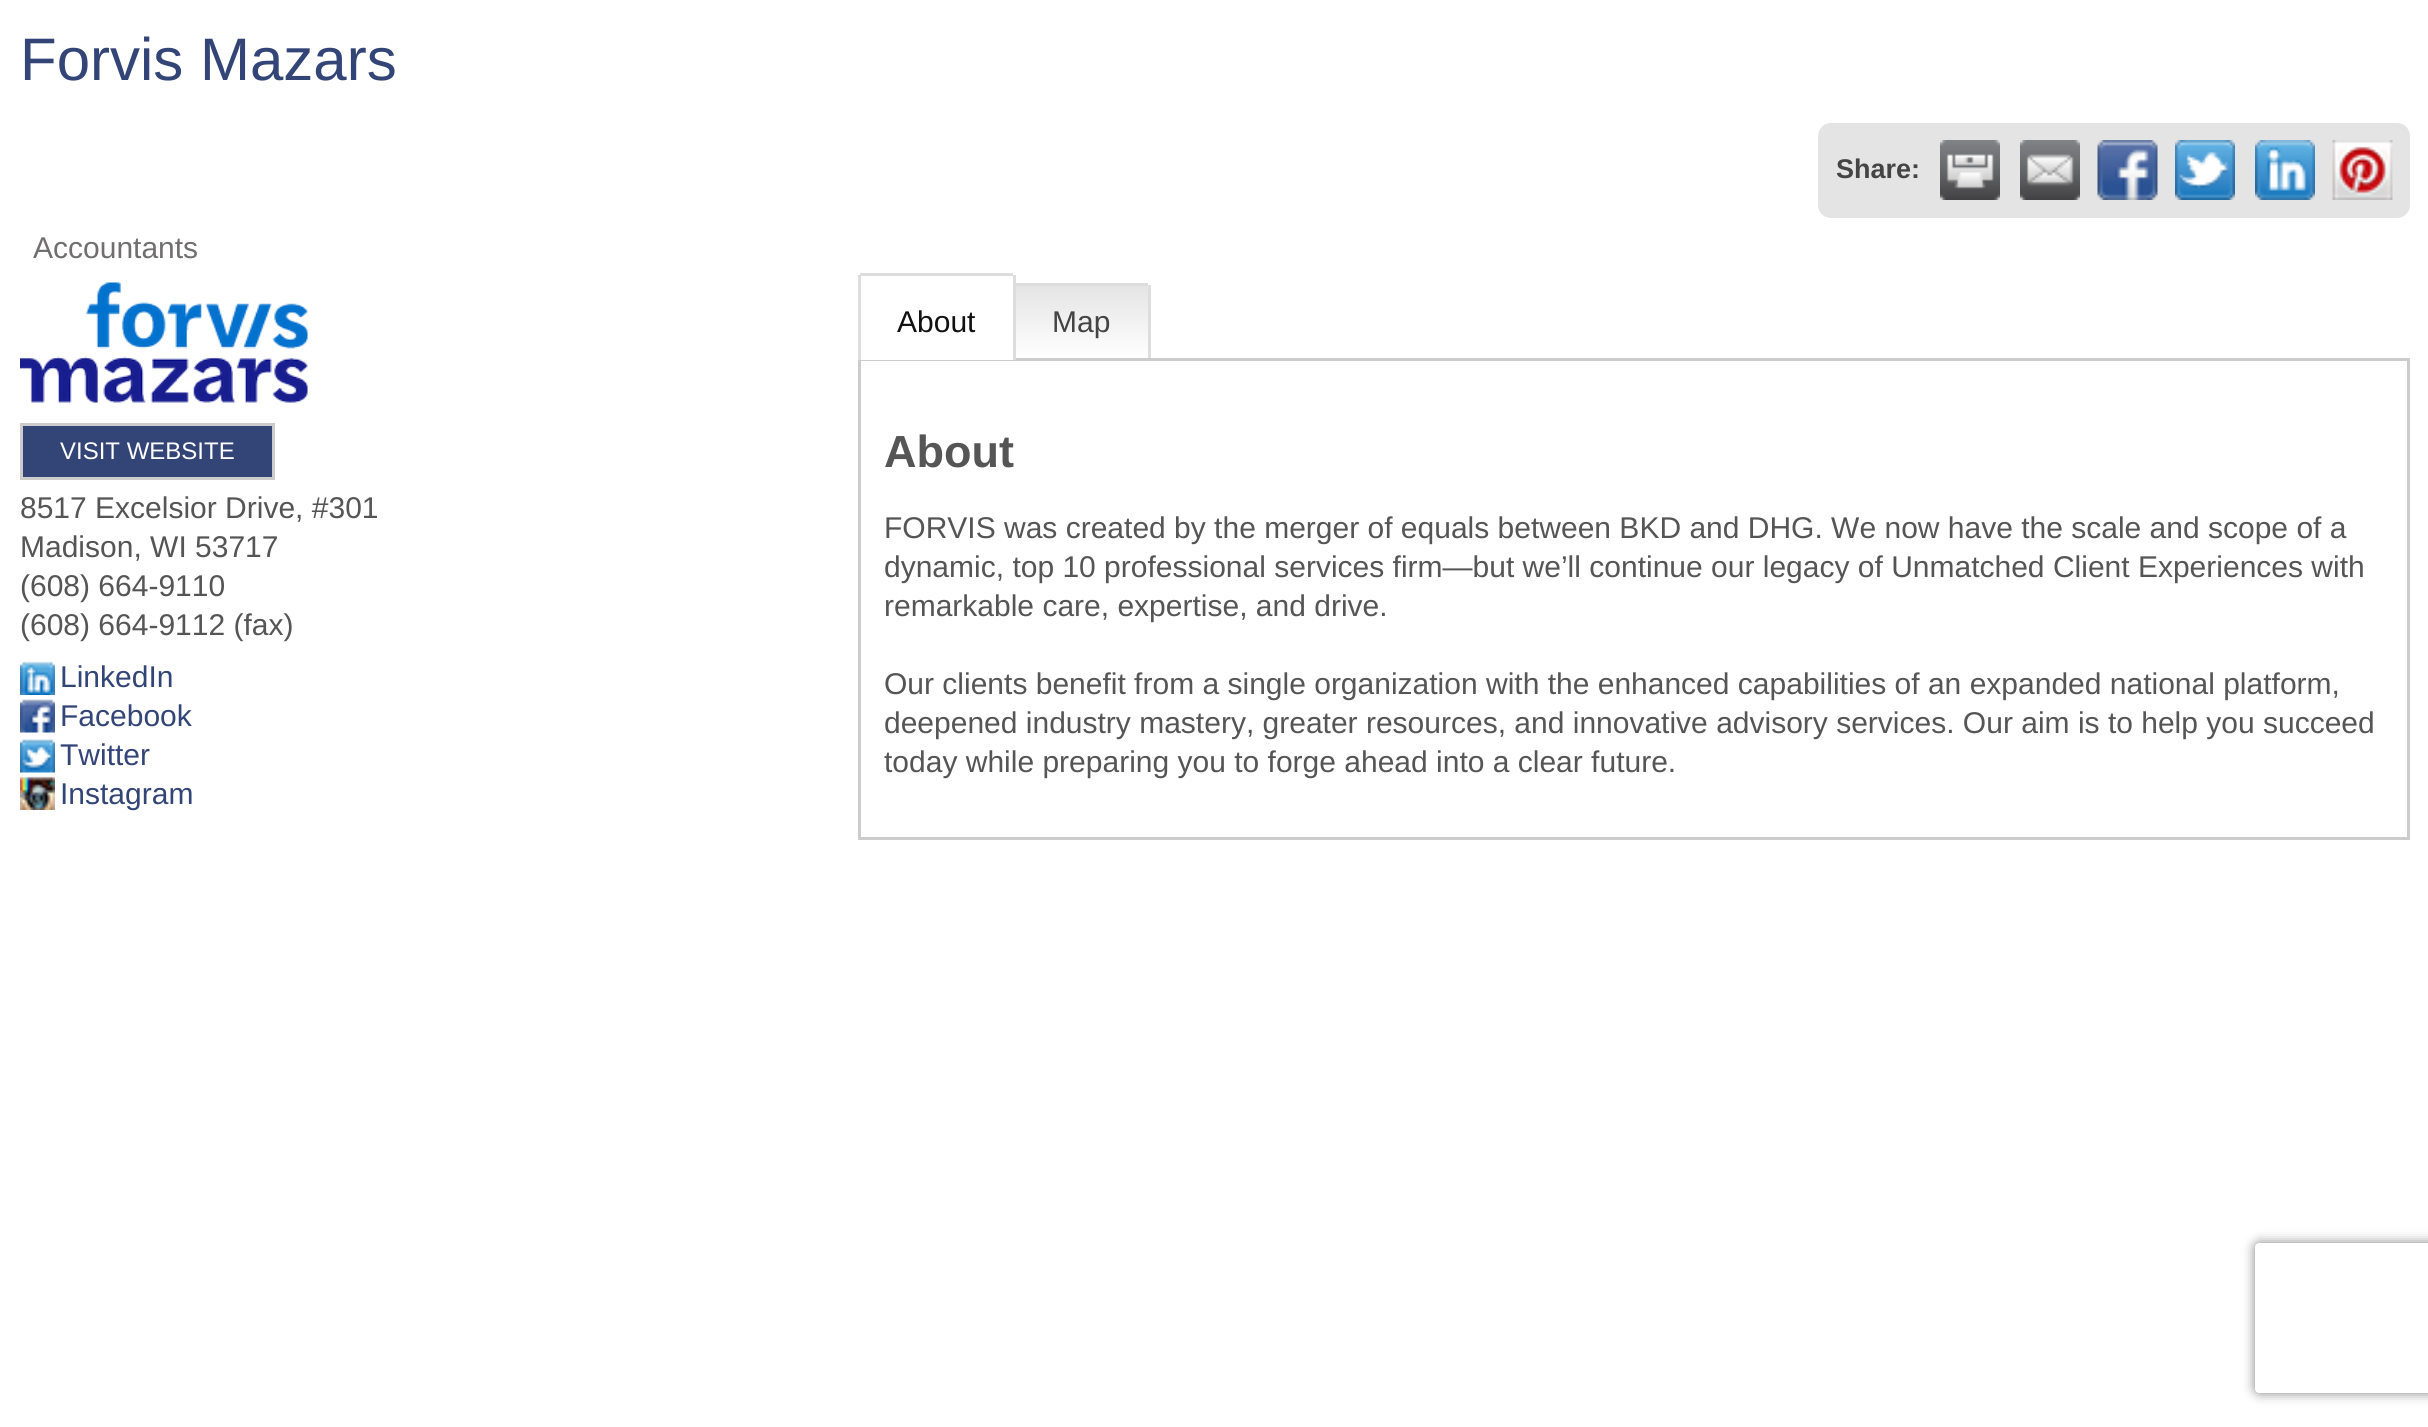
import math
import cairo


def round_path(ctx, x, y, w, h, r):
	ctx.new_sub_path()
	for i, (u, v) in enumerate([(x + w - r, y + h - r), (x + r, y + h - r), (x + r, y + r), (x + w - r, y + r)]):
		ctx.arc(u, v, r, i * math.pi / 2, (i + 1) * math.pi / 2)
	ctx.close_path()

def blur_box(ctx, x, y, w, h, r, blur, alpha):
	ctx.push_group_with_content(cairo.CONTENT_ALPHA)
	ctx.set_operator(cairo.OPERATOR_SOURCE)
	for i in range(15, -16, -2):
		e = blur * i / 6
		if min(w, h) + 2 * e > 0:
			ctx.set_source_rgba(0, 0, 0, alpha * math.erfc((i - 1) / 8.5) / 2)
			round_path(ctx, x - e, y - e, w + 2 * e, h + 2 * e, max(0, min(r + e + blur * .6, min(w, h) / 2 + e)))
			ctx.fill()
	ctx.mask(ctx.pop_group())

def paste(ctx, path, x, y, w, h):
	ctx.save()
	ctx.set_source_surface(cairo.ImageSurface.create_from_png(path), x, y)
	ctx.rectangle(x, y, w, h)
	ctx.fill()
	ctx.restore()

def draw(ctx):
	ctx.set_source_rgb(1, 1, 1)
	ctx.paint()
	ctx.select_font_face('Liberation Sans')
	ctx.set_font_size(60)
	ctx.set_source_rgb(0.2, 0.267, 0.467)
	ctx.move_to(20, 80)
	ctx.show_text('Forvis Mazars')
	ctx.set_source_rgb(0.894, 0.894, 0.894)
	round_path(ctx, 1818, 123, 592, 95, 13)
	ctx.fill()
	ctx.select_font_face('Liberation Sans', cairo.FONT_SLANT_NORMAL, cairo.FONT_WEIGHT_BOLD)
	ctx.set_font_size(27)
	ctx.set_source_rgb(0.267, 0.267, 0.267)
	ctx.move_to(1836, 178)
	ctx.show_text('Share:')
	paste(ctx, 'media/1.png', 1940, 140, 60, 60)
	paste(ctx, 'media/2.png', 2020, 140, 60, 60)
	paste(ctx, 'media/3.png', 2097, 140, 61, 60)
	paste(ctx, 'media/4.png', 2175, 140, 60, 60)
	paste(ctx, 'media/5.png', 2255, 140, 60, 60)
	paste(ctx, 'media/6.png', 2332, 140, 61, 60)
	ctx.select_font_face('Liberation Sans')
	ctx.set_font_size(30)
	ctx.set_source_rgb(0.439, 0.431, 0.431)
	ctx.move_to(33, 258)
	ctx.show_text('Accountants')
	paste(ctx, 'media/7.png', 20, 282, 288, 121)
	ctx.set_source_rgb(0.2, 0.267, 0.467)
	ctx.rectangle(21.5, 424.5, 252, 54)
	ctx.fill_preserve()
	ctx.set_source_rgb(0.8, 0.8, 0.8)
	ctx.set_line_width(3)
	ctx.stroke()
	ctx.set_font_size(24)
	ctx.set_source_rgb(1, 1, 1)
	ctx.move_to(60, 459)
	ctx.show_text('VISIT WEBSITE')
	ctx.set_font_size(30)
	ctx.set_source_rgb(0.337, 0.333, 0.333)
	for x, y, s in [
		(20, 518, '8517 Excelsior Drive, #301'),
		(20, 557, 'Madison, WI 53717'),
		(20, 596, '(608) 664-9110'),
		(20, 635, '(608) 664-9112 (fax)'),
	]:
		ctx.move_to(x, y)
		ctx.show_text(s)
	paste(ctx, 'media/8.png', 20, 661, 35, 34)
	ctx.set_source_rgb(0.2, 0.267, 0.467)
	ctx.move_to(60, 687)
	ctx.show_text('LinkedIn')
	paste(ctx, 'media/9.png', 20, 699, 35, 34)
	ctx.move_to(60, 726)
	ctx.show_text('Facebook')
	paste(ctx, 'media/10.png', 20, 739, 35, 34)
	ctx.move_to(60, 765)
	ctx.show_text('Twitter')
	paste(ctx, 'media/11.png', 20, 776, 35, 34)
	ctx.move_to(60, 804)
	ctx.show_text('Instagram')
	ctx.rectangle(859.5, 359.5, 1549, 479)
	ctx.set_source_rgb(0.8, 0.8, 0.8)
	ctx.stroke()
	ctx.set_source_rgb(1, 1, 1)
	ctx.new_path()
	ctx.move_to(862.5, 275)
	ctx.line_to(1010.5, 275)
	ctx.curve_to(1012, 275, 1013, 276, 1013, 277.5)
	ctx.line_to(1013, 360)
	ctx.line_to(860, 360)
	ctx.line_to(860, 277.5)
	ctx.curve_to(860, 276, 861, 275, 862.5, 275)
	ctx.close_path()
	ctx.fill()
	ctx.set_source_rgb(0.867, 0.867, 0.867)
	ctx.rectangle(860, 273, 153, 3)
	ctx.fill()
	gradient = cairo.LinearGradient(1081, 285, 1081, 358)
	gradient.add_color_stop_rgba(0, 0.894, 0.894, 0.894, 1)
	gradient.add_color_stop_rgba(1, 1, 1, 1, 1)
	ctx.set_source(gradient)
	ctx.new_path()
	ctx.move_to(1015, 285)
	ctx.line_to(1145.5, 285)
	ctx.curve_to(1147, 285, 1148, 286, 1148, 287.5)
	ctx.line_to(1148, 358)
	ctx.line_to(1015, 358)
	ctx.close_path()
	ctx.fill()
	ctx.set_source_rgb(0.867, 0.867, 0.867)
	ctx.rectangle(1015, 283, 133, 3)
	ctx.rectangle(1013, 275, 3, 85)
	ctx.rectangle(858, 275, 3, 85)
	ctx.fill()
	ctx.set_source_rgb(0.067, 0.067, 0.067)
	ctx.move_to(897, 332)
	ctx.show_text('About')
	ctx.set_source_rgb(0.867, 0.867, 0.867)
	ctx.rectangle(1148, 285, 3, 73)
	ctx.fill()
	ctx.set_source_rgb(0.267, 0.267, 0.267)
	ctx.move_to(1052, 332)
	ctx.show_text('Map')
	ctx.select_font_face('Liberation Sans', cairo.FONT_SLANT_NORMAL, cairo.FONT_WEIGHT_BOLD)
	ctx.set_font_size(45)
	ctx.set_source_rgb(0.337, 0.333, 0.333)
	ctx.move_to(884, 467)
	ctx.show_text('About')
	ctx.select_font_face('Liberation Sans')
	ctx.set_font_size(30)
	for x, y, s in [
		(884, 538, 'FORVIS was created by the merger of equals between BKD and DHG. We now have the scale and scope of a'),
		(884, 577, 'dynamic, top 10 professional services firm—but we’ll continue our legacy of Unmatched Client Experiences with'),
		(884, 616, 'remarkable care, expertise, and drive.'),
		(884, 694, 'Our clients benefit from a single organization with the enhanced capabilities of an expanded national platform,'),
		(884, 733, 'deepened industry mastery, greater resources, and innovative advisory services. Our aim is to help you succeed'),
		(884, 772, 'today while preparing you to forge ahead into a clear future.'),
	]:
		ctx.move_to(x, y)
		ctx.show_text(s)
	ctx.save()
	ctx.set_fill_rule(cairo.FILL_RULE_EVEN_ODD)
	ctx.new_path()
	ctx.move_to(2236, 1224)
	ctx.line_to(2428, 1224)
	ctx.line_to(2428, 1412)
	ctx.line_to(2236, 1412)
	ctx.close_path()
	ctx.move_to(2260, 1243)
	ctx.line_to(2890, 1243)
	ctx.curve_to(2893, 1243, 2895, 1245, 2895, 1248)
	ctx.line_to(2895, 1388)
	ctx.curve_to(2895, 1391, 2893, 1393, 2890, 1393)
	ctx.line_to(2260, 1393)
	ctx.curve_to(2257, 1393, 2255, 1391, 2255, 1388)
	ctx.line_to(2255, 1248)
	ctx.curve_to(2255, 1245, 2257, 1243, 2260, 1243)
	ctx.close_path()
	ctx.clip()
	ctx.set_source_rgb(0.502, 0.502, 0.502)
	blur_box(ctx, 2255, 1243, 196, 150, 5, 6, 1)
	ctx.restore()


surface = cairo.ImageSurface(cairo.FORMAT_RGB24, 2428, 1427)
ctx = cairo.Context(surface)
options = cairo.FontOptions()
options.set_hint_metrics(cairo.HINT_METRICS_OFF)
options.set_hint_style(cairo.HINT_STYLE_NONE)
ctx.set_font_options(options)
ctx.set_miter_limit(4)
draw(ctx)
surface.write_to_png('image.png')
